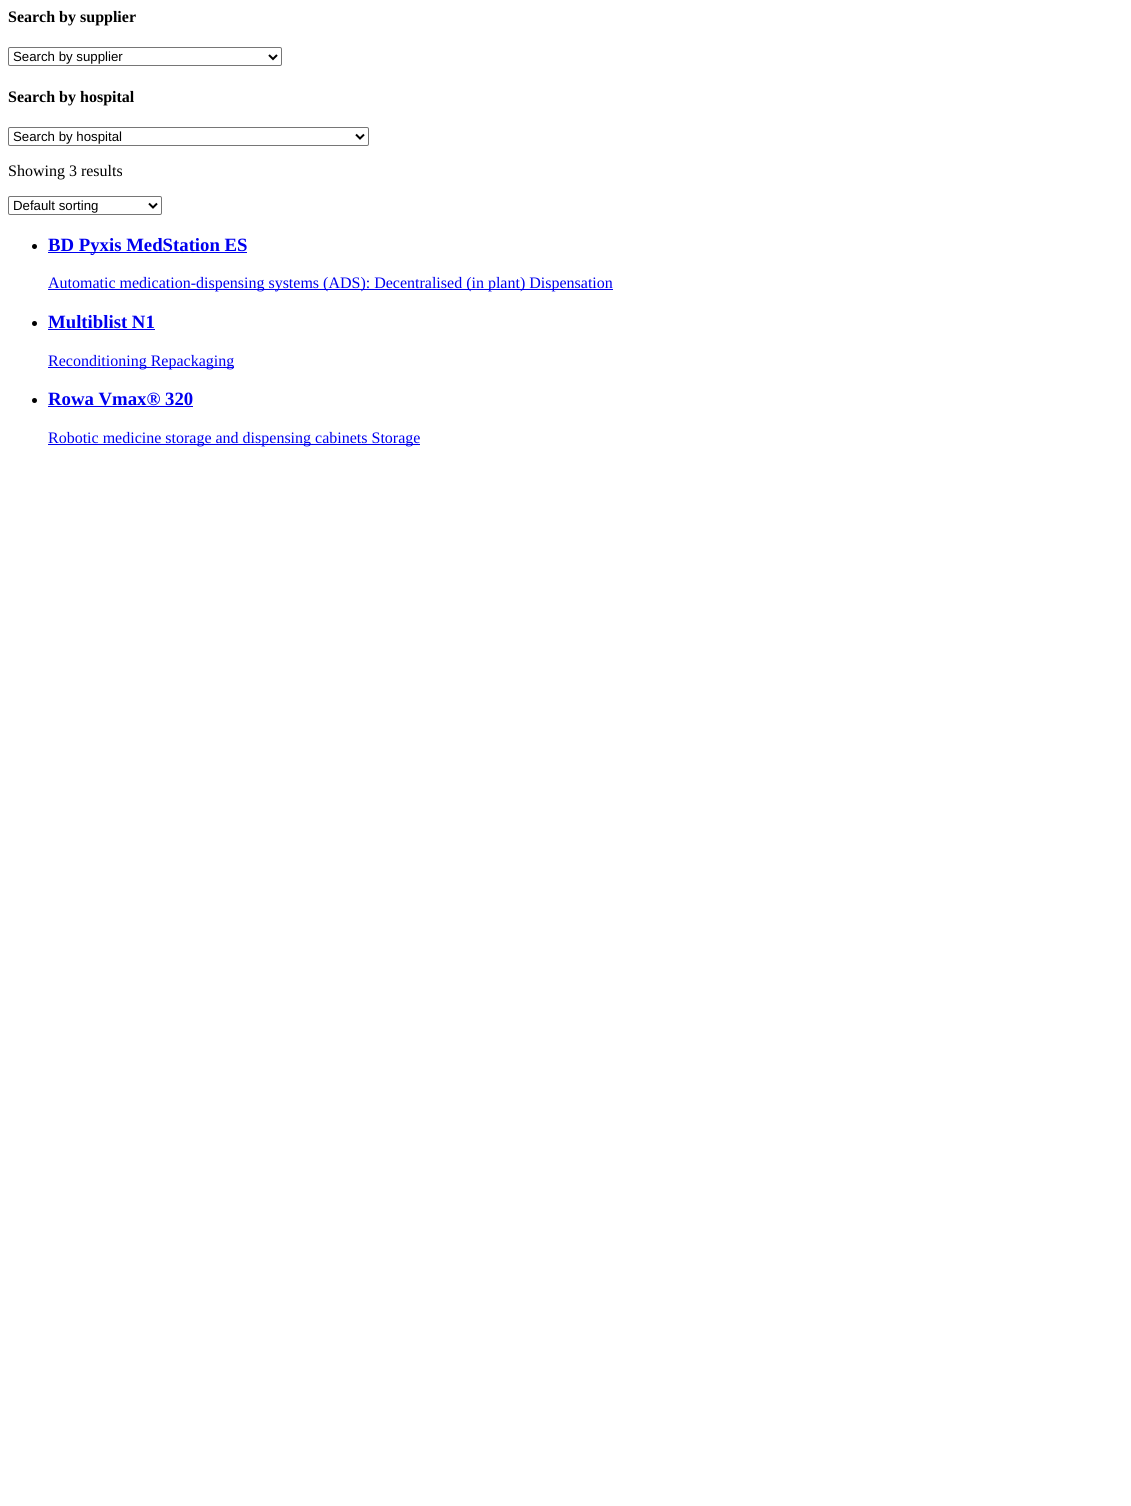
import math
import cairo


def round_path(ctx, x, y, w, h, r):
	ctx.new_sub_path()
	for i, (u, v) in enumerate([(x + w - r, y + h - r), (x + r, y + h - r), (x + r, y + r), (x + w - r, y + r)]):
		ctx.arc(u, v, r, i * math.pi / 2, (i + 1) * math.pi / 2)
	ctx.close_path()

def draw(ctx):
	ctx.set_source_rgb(1, 1, 1)
	ctx.paint()
	ctx.select_font_face('Liberation Serif', cairo.FONT_SLANT_NORMAL, cairo.FONT_WEIGHT_BOLD)
	ctx.set_font_size(16)
	ctx.set_source_rgb(0, 0, 0)
	ctx.move_to(8, 22)
	ctx.show_text('Search by supplier')
	round_path(ctx, 8.5, 47.5, 273, 18, 1.5)
	ctx.set_source_rgb(0.463, 0.463, 0.463)
	ctx.set_line_width(1)
	ctx.stroke()
	ctx.new_path()
	ctx.move_to(269, 55)
	ctx.line_to(273, 59)
	ctx.line_to(277, 55)
	ctx.set_source_rgb(0, 0, 0)
	ctx.set_line_width(2)
	ctx.stroke()
	ctx.select_font_face('Liberation Sans')
	ctx.set_font_size(13.25)
	ctx.move_to(13, 61)
	ctx.show_text('Search by supplier')
	ctx.select_font_face('Liberation Serif', cairo.FONT_SLANT_NORMAL, cairo.FONT_WEIGHT_BOLD)
	ctx.set_font_size(16)
	ctx.move_to(8, 102)
	ctx.show_text('Search by hospital')
	round_path(ctx, 8.5, 127.5, 360, 18, 1.5)
	ctx.set_source_rgb(0.463, 0.463, 0.463)
	ctx.set_line_width(1)
	ctx.stroke()
	ctx.new_path()
	ctx.move_to(356, 134.5)
	ctx.line_to(360, 138.5)
	ctx.line_to(364, 134.5)
	ctx.set_source_rgb(0, 0, 0)
	ctx.set_line_width(2)
	ctx.stroke()
	ctx.select_font_face('Liberation Sans')
	ctx.set_font_size(13.25)
	ctx.move_to(13, 141)
	ctx.show_text('Search by hospital')
	ctx.select_font_face('Liberation Serif')
	ctx.set_font_size(16)
	ctx.move_to(8, 176)
	ctx.show_text('Showing 3 results')
	round_path(ctx, 8.5, 196.5, 153, 18, 1.5)
	ctx.set_source_rgb(0.463, 0.463, 0.463)
	ctx.set_line_width(1)
	ctx.stroke()
	ctx.new_path()
	ctx.move_to(149, 203.5)
	ctx.line_to(153, 207.5)
	ctx.line_to(157, 203.5)
	ctx.set_source_rgb(0, 0, 0)
	ctx.set_line_width(2)
	ctx.stroke()
	ctx.select_font_face('Liberation Sans')
	ctx.set_font_size(13.25)
	ctx.move_to(13, 210)
	ctx.show_text('Default sorting')
	ctx.new_path()
	ctx.arc(34.5, 246.5, 2.5, 0, 2 * math.pi)
	ctx.fill()
	ctx.set_source_rgb(0, 0, 0.933)
	ctx.rectangle(48, 252, 199, 1)
	ctx.fill()
	ctx.select_font_face('Liberation Serif', cairo.FONT_SLANT_NORMAL, cairo.FONT_WEIGHT_BOLD)
	ctx.set_font_size(18.75)
	ctx.move_to(48, 251)
	ctx.show_text('BD Pyxis MedStation ES')
	ctx.rectangle(48, 289, 565, 1)
	ctx.fill()
	ctx.select_font_face('Liberation Serif')
	ctx.set_font_size(16)
	ctx.move_to(48, 288)
	ctx.show_text('Automatic medication-dispensing systems (ADS): Decentralised (in plant) Dispensation')
	ctx.set_source_rgb(0, 0, 0)
	ctx.new_path()
	ctx.arc(34.5, 323.5, 2.5, 0, 2 * math.pi)
	ctx.fill()
	ctx.select_font_face('Liberation Serif', cairo.FONT_SLANT_NORMAL, cairo.FONT_WEIGHT_BOLD)
	ctx.set_font_size(18.75)
	ctx.set_source_rgb(0, 0, 0.933)
	ctx.move_to(48, 328)
	ctx.show_text('Multiblist N1')
	ctx.rectangle(48, 329, 107, 1)
	ctx.fill()
	ctx.rectangle(48, 367, 186, 1)
	ctx.fill()
	ctx.select_font_face('Liberation Serif')
	ctx.set_font_size(16)
	ctx.move_to(48, 366)
	ctx.show_text('Reconditioning Repackaging')
	ctx.set_source_rgb(0, 0, 0)
	ctx.new_path()
	ctx.arc(34.5, 400.5, 2.5, 0, 2 * math.pi)
	ctx.fill()
	ctx.select_font_face('Liberation Serif', cairo.FONT_SLANT_NORMAL, cairo.FONT_WEIGHT_BOLD)
	ctx.set_font_size(18.75)
	ctx.set_source_rgb(0, 0, 0.933)
	ctx.move_to(48, 405)
	ctx.show_text('Rowa Vmax® 320')
	ctx.rectangle(48, 406, 145, 1)
	ctx.fill()
	ctx.rectangle(48, 444, 372, 1)
	ctx.fill()
	ctx.select_font_face('Liberation Serif')
	ctx.set_font_size(16)
	ctx.move_to(48, 443)
	ctx.show_text('Robotic medicine storage and dispensing cabinets Storage')


surface = cairo.ImageSurface(cairo.FORMAT_RGB24, 1131, 1506)
ctx = cairo.Context(surface)
options = cairo.FontOptions()
options.set_hint_metrics(cairo.HINT_METRICS_OFF)
options.set_hint_style(cairo.HINT_STYLE_NONE)
ctx.set_font_options(options)
ctx.set_miter_limit(4)
draw(ctx)
surface.write_to_png('image.png')
